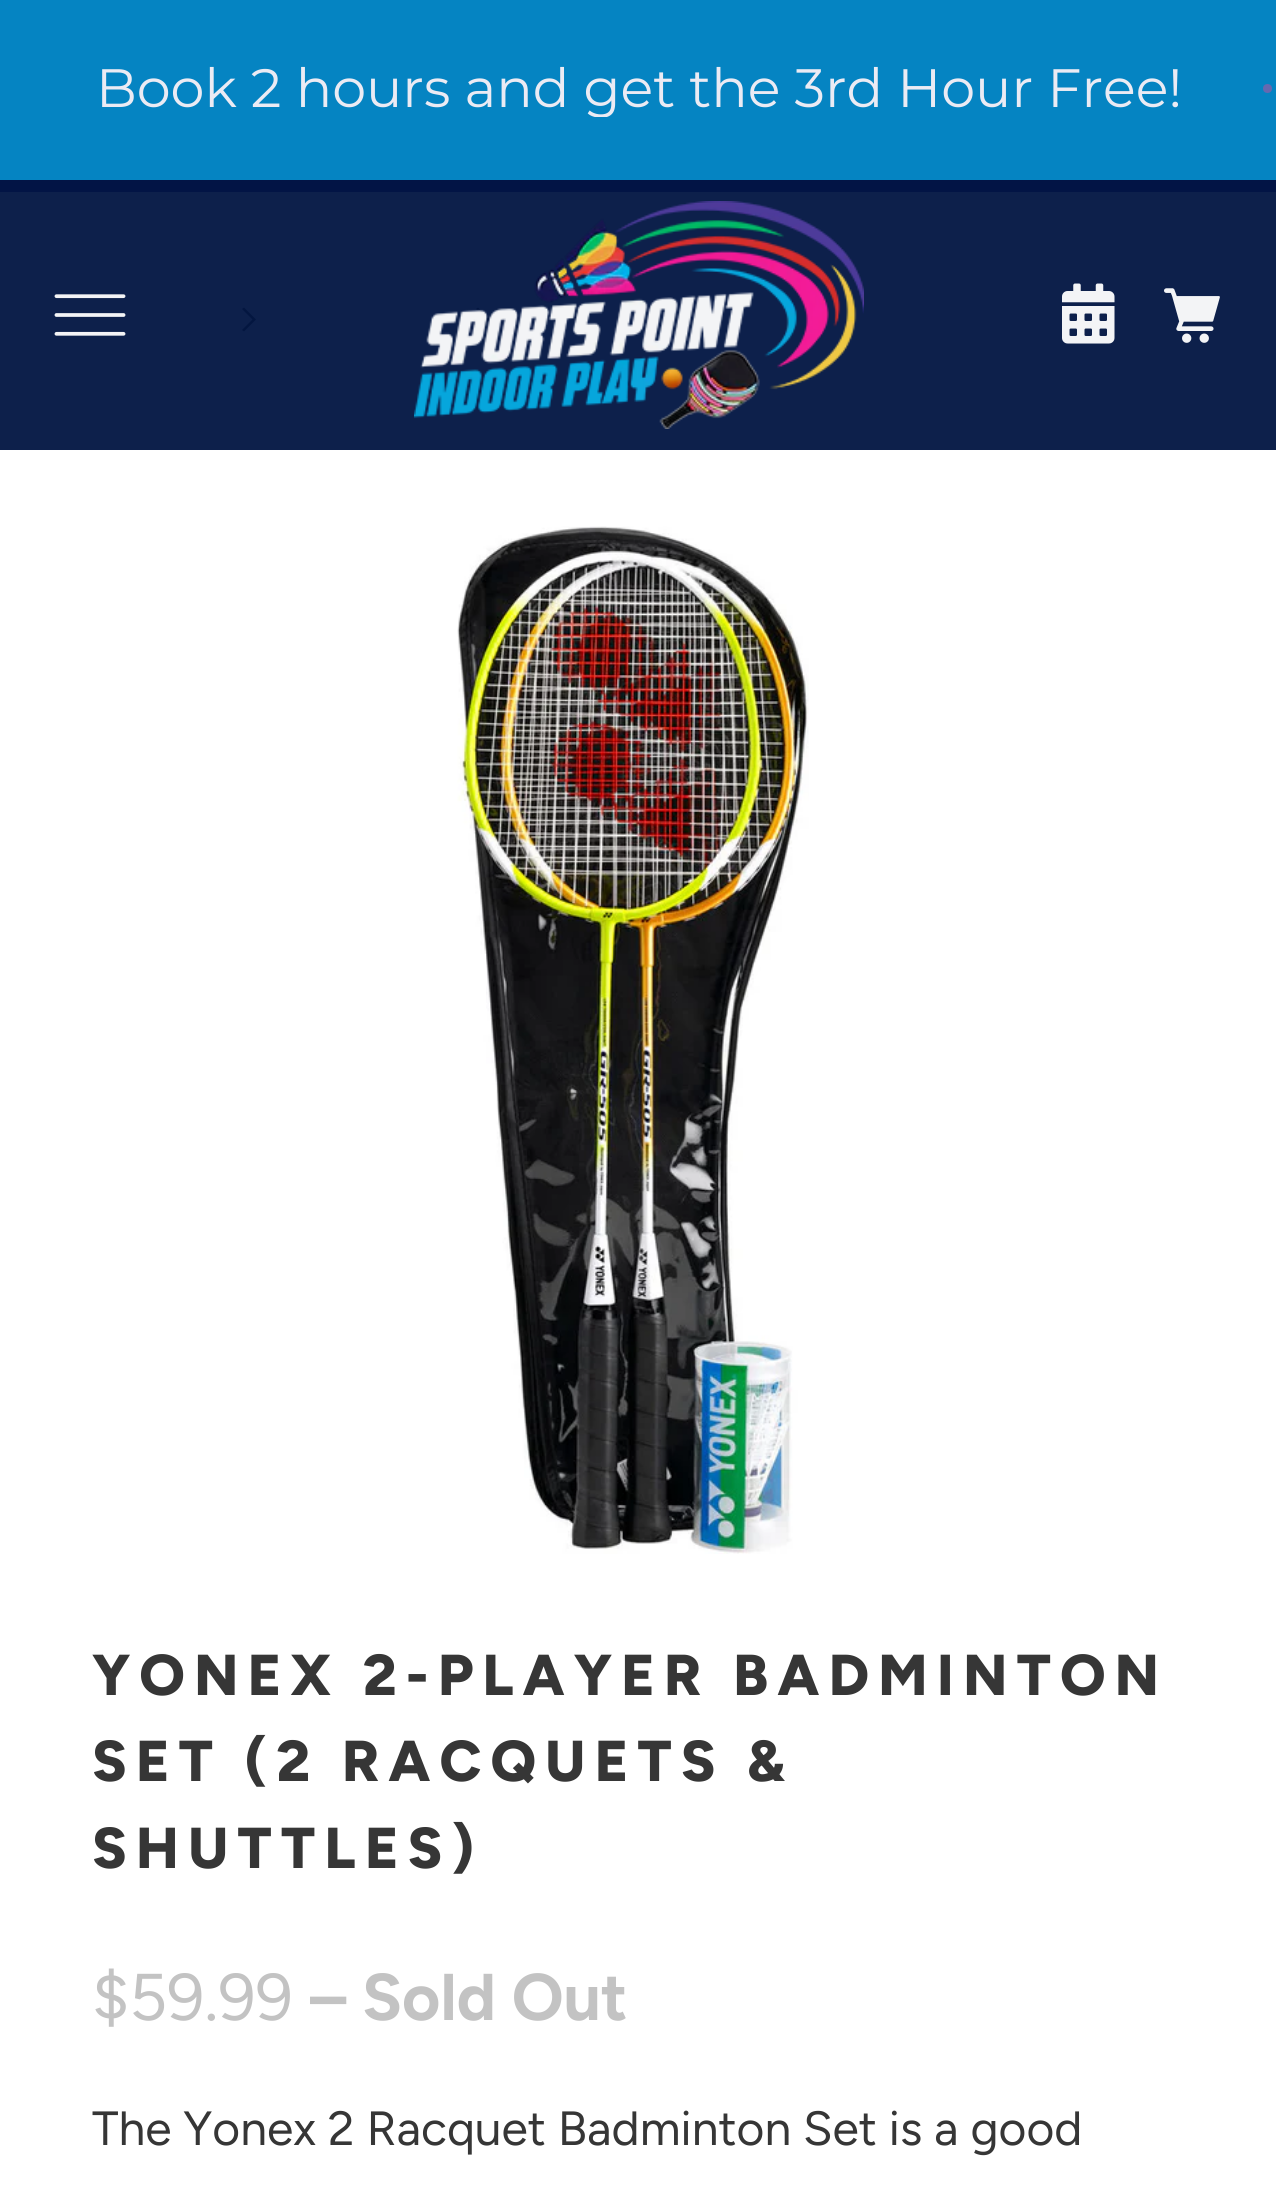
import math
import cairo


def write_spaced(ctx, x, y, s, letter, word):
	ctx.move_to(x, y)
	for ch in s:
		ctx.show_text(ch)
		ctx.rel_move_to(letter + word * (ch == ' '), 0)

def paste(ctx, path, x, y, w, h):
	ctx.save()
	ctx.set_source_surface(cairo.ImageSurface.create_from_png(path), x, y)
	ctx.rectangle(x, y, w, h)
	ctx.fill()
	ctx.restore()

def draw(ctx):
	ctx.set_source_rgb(0.008, 0.082, 0.271)
	ctx.paint()
	ctx.set_source_rgb(1, 1, 1)
	ctx.rectangle(0, 450, 1276, 1754)
	ctx.fill()
	ctx.set_source_rgb(0.051, 0.125, 0.294)
	ctx.rectangle(0, 192, 1276, 258)
	ctx.fill()
	ctx.set_source_rgb(0.02, 0.518, 0.761)
	ctx.rectangle(0, 0, 1276, 180)
	ctx.fill()
	ctx.save()
	ctx.rectangle(96, 63, 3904, 54)
	ctx.clip()
	ctx.select_font_face('Montserrat')
	ctx.set_font_size(54)
	ctx.set_source_rgb(0.918, 0.918, 0.957)
	ctx.move_to(96, 107)
	ctx.show_text('Book 2 hours and get the 3rd Hour Free!')
	ctx.restore()
	ctx.set_source_rgb(0.4, 0.408, 0.686)
	ctx.new_path()
	ctx.arc(1267.5, 88.5, 4.5, 0, 2 * math.pi)
	ctx.fill()
	ctx.set_source_rgb(0.012, 0.086, 0.251)
	ctx.new_path()
	ctx.move_to(250, 325.5)
	ctx.line_to(244, 331.5)
	ctx.line_to(242, 330)
	ctx.line_to(252.5, 319.5)
	ctx.line_to(242, 309)
	ctx.line_to(244, 307.5)
	ctx.line_to(256, 319.5)
	ctx.close_path()
	ctx.fill()
	ctx.new_path()
	ctx.move_to(484, 325.5)
	ctx.line_to(478, 331.5)
	ctx.line_to(476, 330)
	ctx.line_to(486.5, 319.5)
	ctx.line_to(476, 309)
	ctx.line_to(478, 307.5)
	ctx.line_to(490, 319.5)
	ctx.close_path()
	ctx.fill()
	paste(ctx, 'media/1.png', 457, 526, 352, 1028)
	ctx.select_font_face('Figtree ExtraBold')
	ctx.set_font_size(57.6)
	ctx.set_source_rgb(0.212, 0.212, 0.212)
	for x, y, s in [
		(92, 1695, 'YONEX 2-PLAYER BADMINTON'),
		(92, 1781, 'SET (2 RACQUETS &'),
		(92, 1868, 'SHUTTLES)'),
	]:
		write_spaced(ctx, x, y, s, 9, 0)
	ctx.select_font_face('Figtree')
	ctx.set_font_size(66)
	ctx.set_source_rgb(0.765, 0.765, 0.765)
	ctx.move_to(92, 2020)
	ctx.show_text('$59.99')
	ctx.select_font_face('Figtree', cairo.FONT_SLANT_NORMAL, cairo.FONT_WEIGHT_BOLD)
	ctx.move_to(310, 2020)
	ctx.show_text('– Sold Out')
	ctx.select_font_face('Figtree')
	ctx.set_font_size(48)
	ctx.set_source_rgb(0.212, 0.212, 0.212)
	ctx.move_to(92, 2145)
	ctx.show_text('The Yonex 2 Racquet Badminton Set is a good')
	paste(ctx, 'media/2.png', 54, 294, 72, 42)
	paste(ctx, 'media/3.png', 414, 201, 450, 228)
	paste(ctx, 'media/4.png', 1062, 283, 53, 61)
	paste(ctx, 'media/5.png', 1164, 288, 56, 55)


surface = cairo.ImageSurface(cairo.FORMAT_RGB24, 1276, 2204)
ctx = cairo.Context(surface)
options = cairo.FontOptions()
options.set_hint_metrics(cairo.HINT_METRICS_OFF)
options.set_hint_style(cairo.HINT_STYLE_NONE)
ctx.set_font_options(options)
ctx.set_miter_limit(4)
draw(ctx)
surface.write_to_png('image.png')
